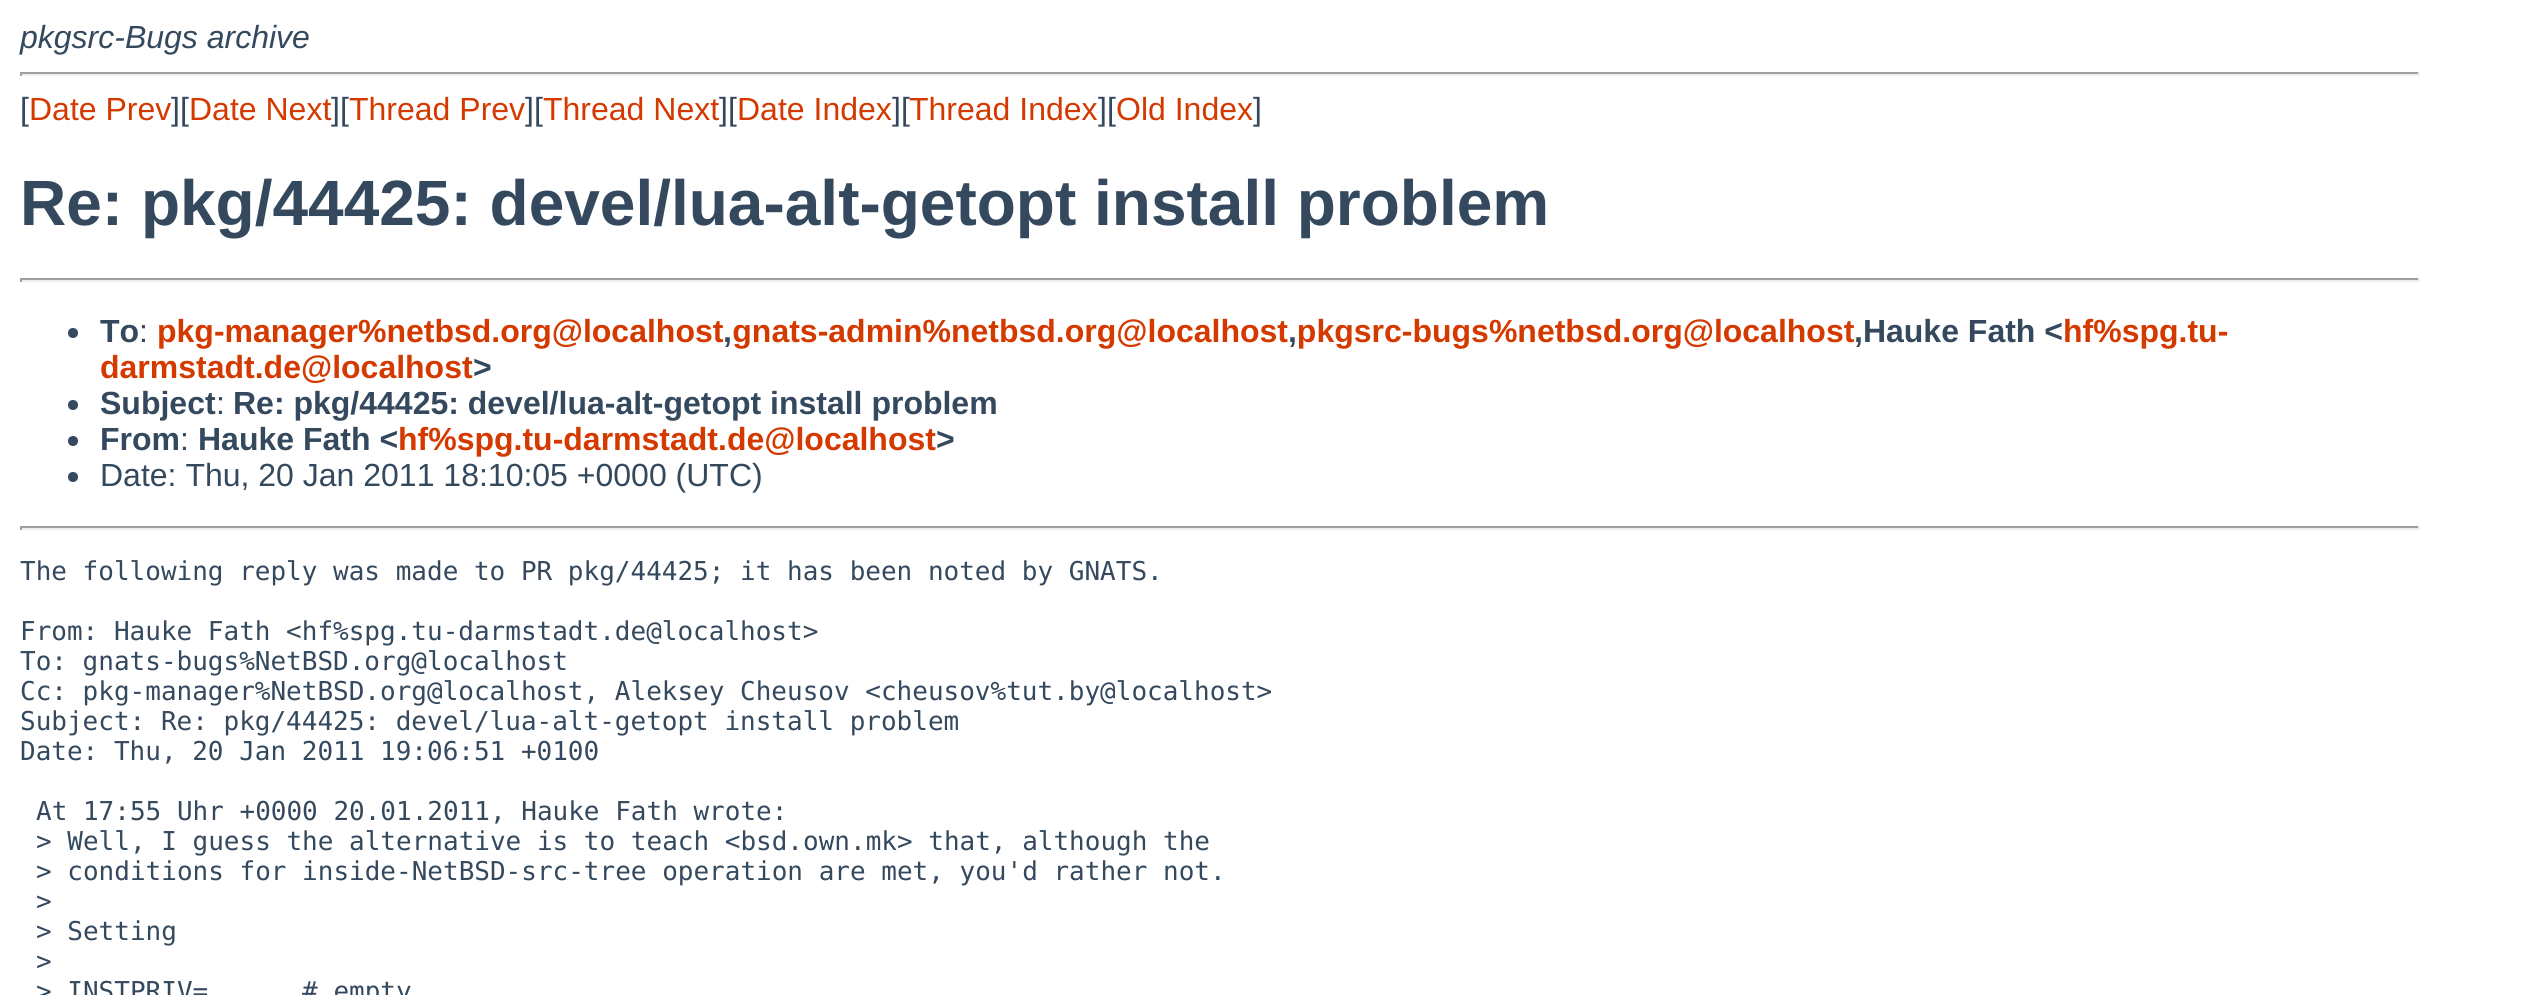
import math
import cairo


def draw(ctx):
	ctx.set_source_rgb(1, 1, 1)
	ctx.paint()
	ctx.select_font_face('Liberation Sans', cairo.FONT_SLANT_ITALIC)
	ctx.set_font_size(32)
	ctx.set_source_rgb(0.204, 0.286, 0.369)
	ctx.move_to(20, 48)
	ctx.show_text('pkgsrc-Bugs archive')
	ctx.set_source_rgb(0.624, 0.624, 0.624)
	ctx.rectangle(20, 72, 2400, 2)
	ctx.fill()
	ctx.set_source_rgb(0.933, 0.933, 0.933)
	ctx.rectangle(2418, 72, 2, 4)
	ctx.rectangle(20, 74, 2400, 2)
	ctx.fill()
	ctx.set_source_rgb(0.624, 0.624, 0.624)
	ctx.rectangle(20, 72, 2, 4)
	ctx.fill()
	ctx.select_font_face('Liberation Sans')
	ctx.set_source_rgb(0.204, 0.286, 0.369)
	ctx.move_to(20, 120)
	ctx.show_text('[')
	ctx.set_source_rgb(0.831, 0.224, 0)
	ctx.move_to(29, 120)
	ctx.show_text('Date Prev')
	ctx.set_source_rgb(0.204, 0.286, 0.369)
	ctx.move_to(171, 120)
	ctx.show_text('][')
	ctx.set_source_rgb(0.831, 0.224, 0)
	ctx.move_to(189, 120)
	ctx.show_text('Date Next')
	ctx.set_source_rgb(0.204, 0.286, 0.369)
	ctx.move_to(331, 120)
	ctx.show_text('][')
	ctx.set_source_rgb(0.831, 0.224, 0)
	ctx.move_to(349, 120)
	ctx.show_text('Thread Prev')
	ctx.set_source_rgb(0.204, 0.286, 0.369)
	ctx.move_to(525, 120)
	ctx.show_text('][')
	ctx.set_source_rgb(0.831, 0.224, 0)
	ctx.move_to(543, 120)
	ctx.show_text('Thread Next')
	ctx.set_source_rgb(0.204, 0.286, 0.369)
	ctx.move_to(719, 120)
	ctx.show_text('][')
	ctx.set_source_rgb(0.831, 0.224, 0)
	ctx.move_to(737, 120)
	ctx.show_text('Date Index')
	ctx.set_source_rgb(0.204, 0.286, 0.369)
	ctx.move_to(892, 120)
	ctx.show_text('][')
	ctx.set_source_rgb(0.831, 0.224, 0)
	ctx.move_to(909, 120)
	ctx.show_text('Thread Index')
	ctx.set_source_rgb(0.204, 0.286, 0.369)
	ctx.move_to(1098, 120)
	ctx.show_text('][')
	ctx.set_source_rgb(0.831, 0.224, 0)
	ctx.move_to(1116, 120)
	ctx.show_text('Old Index')
	ctx.set_source_rgb(0.204, 0.286, 0.369)
	ctx.move_to(1253, 120)
	ctx.show_text(']')
	ctx.select_font_face('Liberation Sans', cairo.FONT_SLANT_NORMAL, cairo.FONT_WEIGHT_BOLD)
	ctx.set_font_size(64)
	ctx.move_to(20, 225)
	ctx.show_text('Re: pkg/44425: devel/lua-alt-getopt install problem')
	ctx.set_source_rgb(0.624, 0.624, 0.624)
	ctx.rectangle(20, 278, 2400, 2)
	ctx.fill()
	ctx.set_source_rgb(0.933, 0.933, 0.933)
	ctx.rectangle(2418, 278, 2, 4)
	ctx.rectangle(20, 280, 2400, 2)
	ctx.fill()
	ctx.set_source_rgb(0.624, 0.624, 0.624)
	ctx.rectangle(20, 278, 2, 4)
	ctx.fill()
	ctx.set_source_rgb(0.204, 0.286, 0.369)
	ctx.arc(73, 333, 5, 0, 2 * math.pi)
	ctx.fill()
	ctx.set_font_size(32)
	ctx.move_to(100, 342)
	ctx.show_text('To')
	ctx.select_font_face('Liberation Sans')
	ctx.move_to(139, 342)
	ctx.show_text(':')
	ctx.select_font_face('Liberation Sans', cairo.FONT_SLANT_NORMAL, cairo.FONT_WEIGHT_BOLD)
	ctx.set_source_rgb(0.831, 0.224, 0)
	ctx.move_to(157, 342)
	ctx.show_text('pkg-manager%netbsd.org@localhost gnats-admin%netbsd.org@localhost pkgsrc-bugs%netbsd.org@localhost')
	ctx.set_source_rgb(0.204, 0.286, 0.369)
	ctx.move_to(1854, 342)
	ctx.show_text(',Hauke Fath <')
	ctx.set_source_rgb(0.831, 0.224, 0)
	ctx.move_to(2063, 342)
	ctx.show_text('hf%spg.tu-')
	ctx.set_source_rgb(0.204, 0.286, 0.369)
	ctx.move_to(723, 342)
	ctx.show_text(',')
	ctx.move_to(1288, 342)
	ctx.show_text(',')
	ctx.set_source_rgb(0.831, 0.224, 0)
	ctx.move_to(100, 378)
	ctx.show_text('darmstadt.de@localhost')
	ctx.set_source_rgb(0.204, 0.286, 0.369)
	ctx.move_to(473, 378)
	ctx.show_text('>')
	ctx.new_path()
	ctx.arc(73, 405, 5, 0, 2 * math.pi)
	ctx.fill()
	ctx.move_to(100, 414)
	ctx.show_text('Subject')
	ctx.select_font_face('Liberation Sans')
	ctx.move_to(216, 414)
	ctx.show_text(':')
	ctx.select_font_face('Liberation Sans', cairo.FONT_SLANT_NORMAL, cairo.FONT_WEIGHT_BOLD)
	ctx.move_to(233, 414)
	ctx.show_text('Re: pkg/44425: devel/lua-alt-getopt install problem')
	ctx.new_path()
	ctx.arc(73, 441, 5, 0, 2 * math.pi)
	ctx.fill()
	ctx.move_to(100, 450)
	ctx.show_text('From')
	ctx.select_font_face('Liberation Sans')
	ctx.move_to(180, 450)
	ctx.show_text(':')
	ctx.select_font_face('Liberation Sans', cairo.FONT_SLANT_NORMAL, cairo.FONT_WEIGHT_BOLD)
	ctx.move_to(198, 450)
	ctx.show_text('Hauke Fath <')
	ctx.set_source_rgb(0.831, 0.224, 0)
	ctx.move_to(398, 450)
	ctx.show_text('hf%spg.tu-darmstadt.de@localhost')
	ctx.set_source_rgb(0.204, 0.286, 0.369)
	ctx.move_to(936, 450)
	ctx.show_text('>')
	ctx.new_path()
	ctx.arc(73, 477, 5, 0, 2 * math.pi)
	ctx.fill()
	ctx.select_font_face('Liberation Sans')
	ctx.move_to(100, 486)
	ctx.show_text('Date: Thu, 20 Jan 2011 18:10:05 +0000 (UTC)')
	ctx.set_source_rgb(0.624, 0.624, 0.624)
	ctx.rectangle(20, 526, 2400, 2)
	ctx.fill()
	ctx.set_source_rgb(0.933, 0.933, 0.933)
	ctx.rectangle(2418, 526, 2, 4)
	ctx.rectangle(20, 528, 2400, 2)
	ctx.fill()
	ctx.set_source_rgb(0.624, 0.624, 0.624)
	ctx.rectangle(20, 526, 2, 4)
	ctx.fill()
	ctx.select_font_face('DejaVu Sans Mono')
	ctx.set_font_size(26)
	ctx.set_source_rgb(0.204, 0.286, 0.369)
	for x, y, s in [
		(20, 580, 'The following reply was made to PR pkg/44425; it has been noted by GNATS.'),
		(20, 640, 'From: Hauke Fath <hf%spg.tu-darmstadt.de@localhost>'),
		(20, 670, 'To: gnats-bugs%NetBSD.org@localhost'),
		(20, 700, 'Cc: pkg-manager%NetBSD.org@localhost, Aleksey Cheusov <cheusov%tut.by@localhost>'),
		(20, 730, 'Subject: Re: pkg/44425: devel/lua-alt-getopt install problem'),
		(20, 760, 'Date: Thu, 20 Jan 2011 19:06:51 +0100'),
		(36, 820, 'At 17:55 Uhr +0000 20.01.2011, Hauke Fath wrote:'),
		(36, 850, '> Well, I guess the alternative is to teach <bsd.own.mk> that, although the'),
		(36, 880, '> conditions for inside-NetBSD-src-tree operation are met, you\'d rather not.'),
		(36, 910, '>'),
		(36, 940, '> Setting'),
		(36, 970, '>'),
		(36, 1000, '> INSTPRIV=      # empty'),
	]:
		ctx.move_to(x, y)
		ctx.show_text(s)


surface = cairo.ImageSurface(cairo.FORMAT_RGB24, 2533, 995)
ctx = cairo.Context(surface)
options = cairo.FontOptions()
options.set_hint_metrics(cairo.HINT_METRICS_OFF)
options.set_hint_style(cairo.HINT_STYLE_NONE)
ctx.set_font_options(options)
ctx.set_miter_limit(4)
draw(ctx)
surface.write_to_png('image.png')
